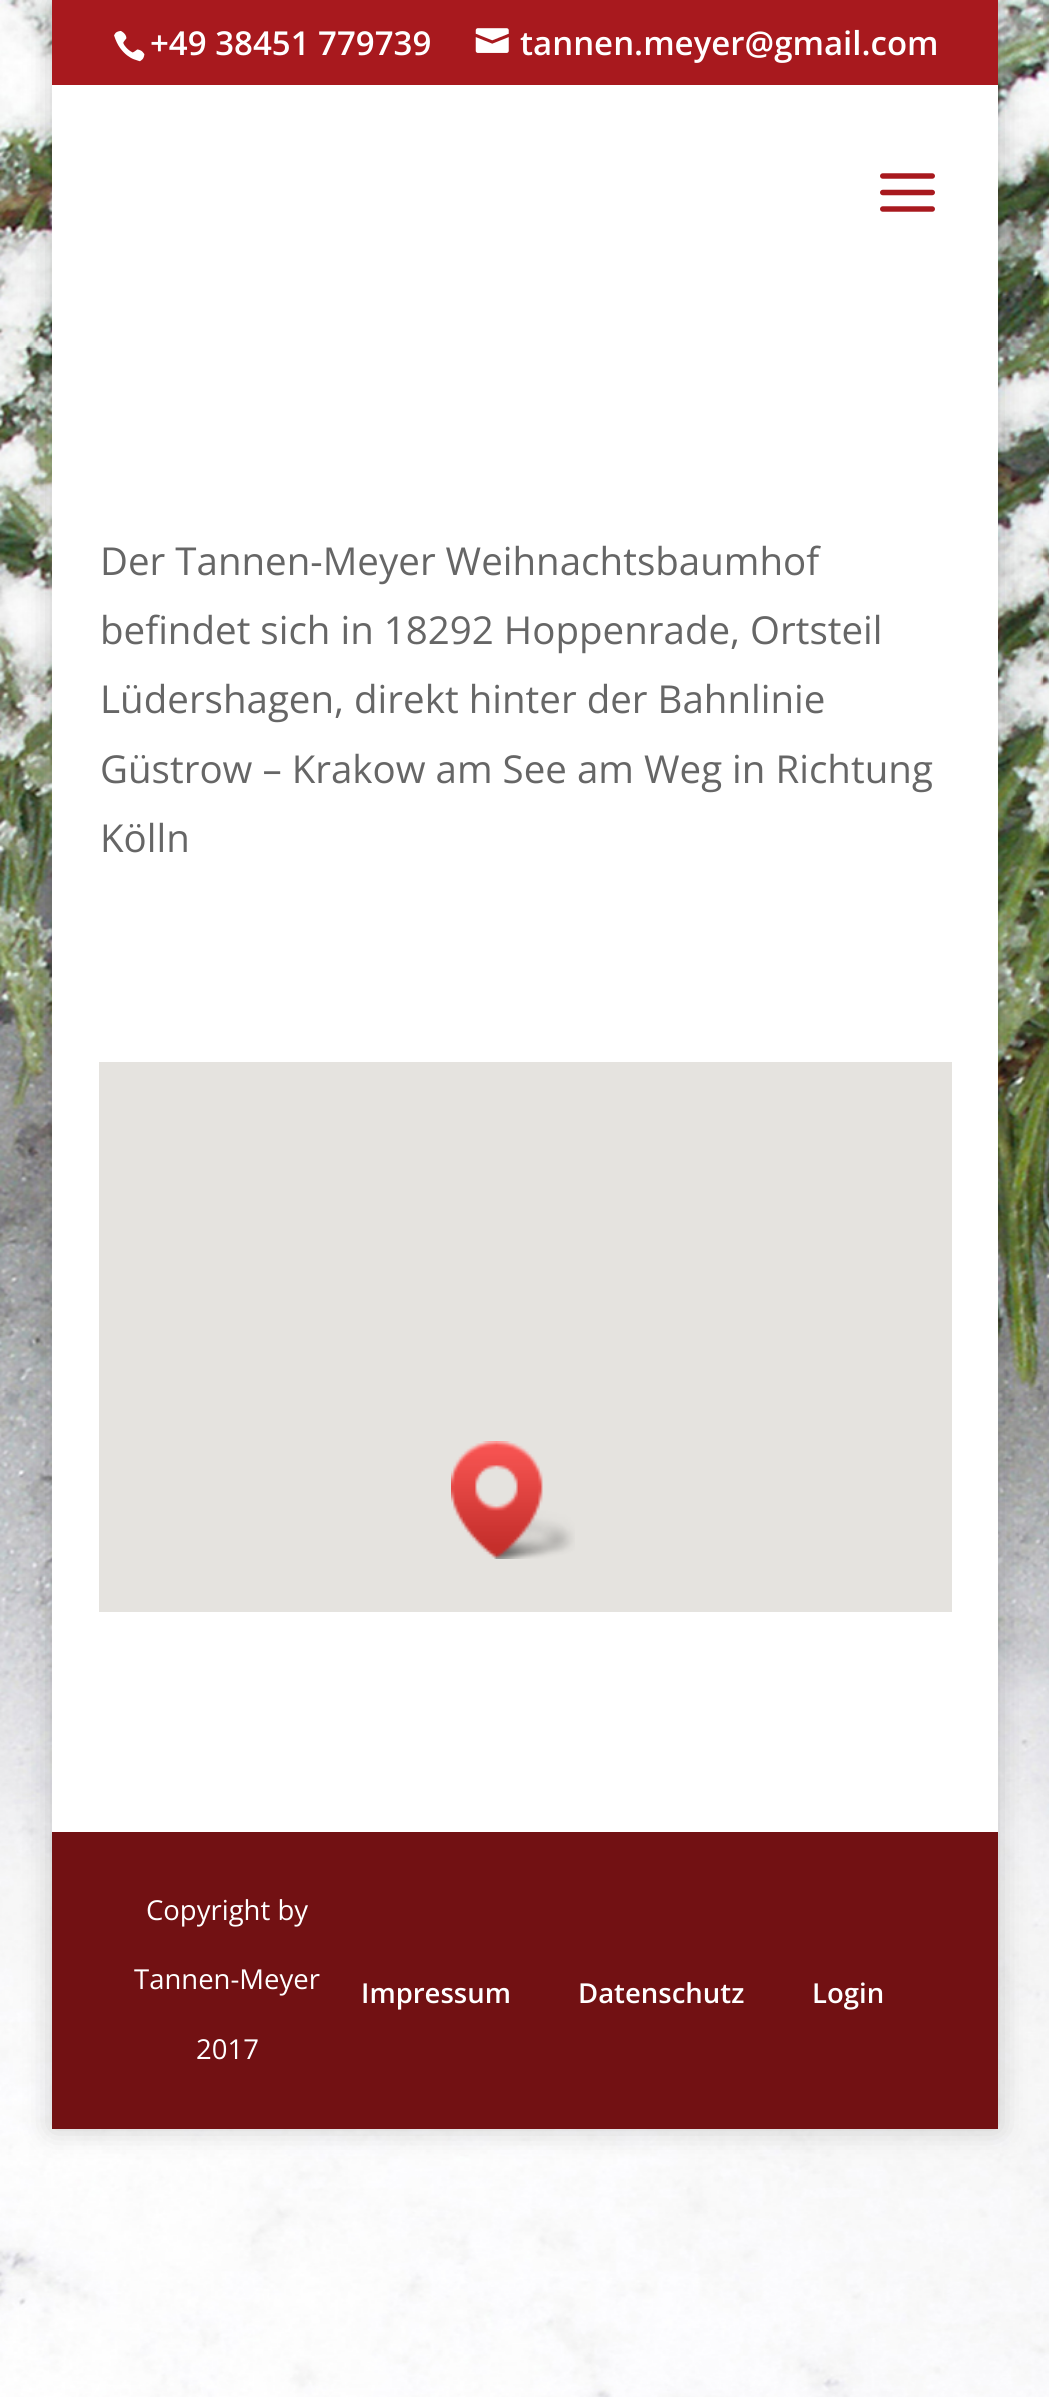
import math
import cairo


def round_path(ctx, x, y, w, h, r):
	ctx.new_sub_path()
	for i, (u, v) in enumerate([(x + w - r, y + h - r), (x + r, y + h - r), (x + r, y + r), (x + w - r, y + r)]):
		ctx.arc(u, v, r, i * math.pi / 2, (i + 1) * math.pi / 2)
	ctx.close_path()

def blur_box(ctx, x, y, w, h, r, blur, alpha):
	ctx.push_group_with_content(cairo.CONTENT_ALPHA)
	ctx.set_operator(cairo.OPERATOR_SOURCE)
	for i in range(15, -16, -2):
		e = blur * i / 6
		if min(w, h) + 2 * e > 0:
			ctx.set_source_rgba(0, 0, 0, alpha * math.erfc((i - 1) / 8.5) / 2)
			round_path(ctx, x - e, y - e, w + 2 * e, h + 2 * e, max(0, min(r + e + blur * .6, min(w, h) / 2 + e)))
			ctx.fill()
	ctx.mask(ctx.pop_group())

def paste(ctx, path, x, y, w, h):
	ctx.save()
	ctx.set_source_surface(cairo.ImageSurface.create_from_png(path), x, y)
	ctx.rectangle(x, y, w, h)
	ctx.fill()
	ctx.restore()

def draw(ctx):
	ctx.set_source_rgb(1, 1, 1)
	ctx.paint()
	paste(ctx, 'media/1.png', 0, 0, 1049, 2397)
	ctx.set_source_rgb(0, 0, 0)
	blur_box(ctx, 52, 0, 946, 2129, 0, 14, 0.2)
	ctx.set_source_rgb(0.659, 0.098, 0.118)
	ctx.rectangle(52, 0, 946, 85)
	ctx.fill()
	paste(ctx, 'media/2.png', 114, 30, 31, 32)
	ctx.select_font_face('Open Sans SemiBold')
	ctx.set_font_size(33)
	ctx.set_source_rgb(1, 1, 1)
	ctx.move_to(150, 55)
	ctx.show_text('+49 38451 779739')
	paste(ctx, 'media/3.png', 475, 28, 34, 25)
	ctx.move_to(520, 55)
	ctx.show_text('tannen.meyer@gmail.com')
	ctx.rectangle(52, 85, 946, 1747)
	ctx.fill()
	paste(ctx, 'media/4.png', 880, 173, 55, 39)
	ctx.select_font_face('Open Sans')
	ctx.set_font_size(38.5)
	ctx.set_source_rgb(0.4, 0.4, 0.4)
	for x, y, s in [
		(100, 575, 'Der Tannen-Meyer Weihnachtsbaumhof'),
		(100, 644, 'befindet sich in 18292 Hoppenrade, Ortsteil'),
		(100, 713, 'Lüdershagen, direkt hinter der Bahnlinie'),
		(100, 783, 'Güstrow – Krakow am See am Weg in Richtung'),
		(100, 852, 'Kölln'),
	]:
		ctx.move_to(x, y)
		ctx.show_text(s)
	ctx.set_source_rgb(0.898, 0.89, 0.875)
	ctx.rectangle(99, 1062, 853, 550)
	ctx.fill()
	paste(ctx, 'media/5.png', 451, 1441, 124, 118)
	ctx.set_source_rgb(0.447, 0.067, 0.078)
	ctx.rectangle(52, 1832, 946, 297)
	ctx.fill()
	ctx.set_font_size(27.5)
	ctx.set_source_rgb(1, 1, 1)
	for x, y, s in [
		(146, 1920, 'Copyright by'),
		(134, 1989, 'Tannen-Meyer'),
		(196, 2059, '2017'),
	]:
		ctx.move_to(x, y)
		ctx.show_text(s)
	ctx.select_font_face('Open Sans SemiBold')
	for x, y, s in [
		(361, 2003, 'Impressum'),
		(578, 2003, 'Datenschutz'),
		(812, 2003, 'Login'),
	]:
		ctx.move_to(x, y)
		ctx.show_text(s)


surface = cairo.ImageSurface(cairo.FORMAT_RGB24, 1049, 2397)
ctx = cairo.Context(surface)
options = cairo.FontOptions()
options.set_hint_metrics(cairo.HINT_METRICS_OFF)
options.set_hint_style(cairo.HINT_STYLE_NONE)
ctx.set_font_options(options)
ctx.set_miter_limit(4)
draw(ctx)
surface.write_to_png('image.png')
